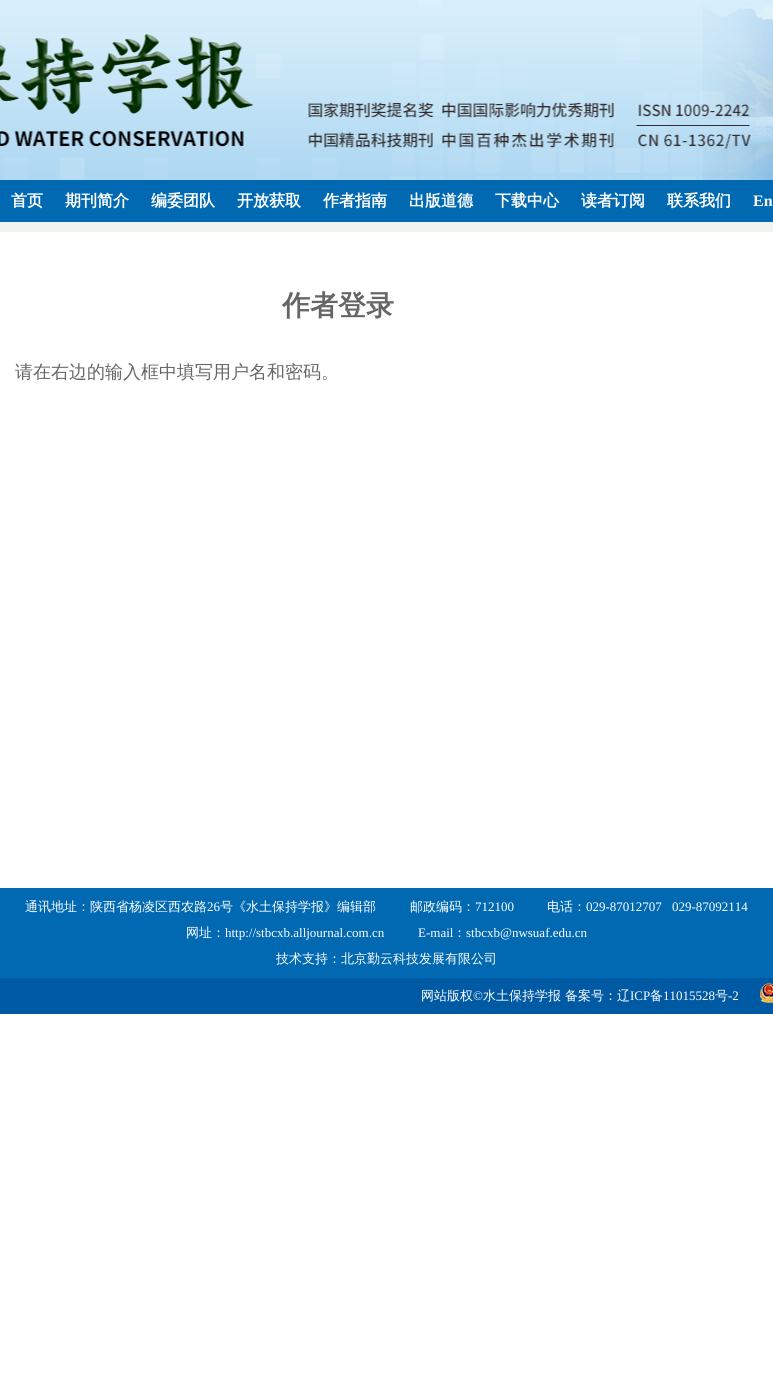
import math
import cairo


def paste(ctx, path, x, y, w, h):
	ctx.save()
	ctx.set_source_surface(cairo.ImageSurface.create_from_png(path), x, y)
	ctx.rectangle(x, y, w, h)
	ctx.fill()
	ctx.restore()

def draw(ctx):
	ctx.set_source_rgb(1, 1, 1)
	ctx.paint()
	ctx.set_source_rgb(0.941, 0.957, 0.945)
	ctx.rectangle(0, 222, 773, 10)
	ctx.fill()
	paste(ctx, 'media/1.png', 0, 0, 773, 180)
	ctx.set_source_rgb(0, 0.412, 0.698)
	ctx.rectangle(0, 180, 773, 42)
	ctx.fill()
	ctx.select_font_face('WenQuanYi Zen Hei', cairo.FONT_SLANT_NORMAL, cairo.FONT_WEIGHT_BOLD)
	ctx.set_font_size(16)
	ctx.set_source_rgb(1, 1, 1)
	for x, y, s in [
		(11, 206, '首页'),
		(65, 206, '期刊简介'),
		(151, 206, '编委团队'),
		(237, 206, '开放获取'),
		(323, 206, '作者指南'),
		(409, 206, '出版道德'),
		(495, 206, '下载中心'),
		(581, 206, '读者订阅'),
		(667, 206, '联系我们'),
	]:
		ctx.move_to(x, y)
		ctx.show_text(s)
	ctx.select_font_face('Liberation Serif', cairo.FONT_SLANT_NORMAL, cairo.FONT_WEIGHT_BOLD)
	ctx.move_to(753, 206)
	ctx.show_text('En')
	ctx.select_font_face('WenQuanYi Zen Hei', cairo.FONT_SLANT_NORMAL, cairo.FONT_WEIGHT_BOLD)
	ctx.set_font_size(28)
	ctx.set_source_rgb(0.4, 0.4, 0.4)
	ctx.move_to(282, 315)
	ctx.show_text('作者登录')
	ctx.select_font_face('WenQuanYi Zen Hei Medium')
	ctx.set_font_size(18)
	ctx.move_to(15, 378)
	ctx.show_text('请在右边的输入框中填写用户名和密码。')
	ctx.set_source_rgb(0, 0.412, 0.698)
	ctx.rectangle(0, 888, 773, 90)
	ctx.fill()
	ctx.set_font_size(13)
	ctx.set_source_rgb(1, 1, 1)
	ctx.move_to(25, 911)
	ctx.show_text('通讯地址：陕西省杨凌区西农路')
	ctx.select_font_face('Liberation Serif')
	ctx.move_to(207, 911)
	ctx.show_text('26')
	ctx.select_font_face('WenQuanYi Zen Hei Medium')
	ctx.move_to(220, 911)
	ctx.show_text('号《水土保持学报》编辑部')
	ctx.move_to(410, 911)
	ctx.show_text('邮政编码：')
	ctx.select_font_face('Liberation Serif')
	ctx.move_to(475, 911)
	ctx.show_text('712100')
	ctx.select_font_face('WenQuanYi Zen Hei Medium')
	ctx.move_to(547, 911)
	ctx.show_text('电话：')
	ctx.select_font_face('Liberation Serif')
	ctx.move_to(586, 911)
	ctx.show_text('029-87012707')
	ctx.move_to(672, 911)
	ctx.show_text('029-87092114')
	ctx.select_font_face('WenQuanYi Zen Hei Medium')
	ctx.move_to(186, 937)
	ctx.show_text('网址：')
	ctx.select_font_face('Liberation Serif')
	ctx.move_to(225, 937)
	ctx.show_text('http://stbcxb.alljournal.com.cn')
	ctx.move_to(418, 937)
	ctx.show_text('E-mail')
	ctx.select_font_face('WenQuanYi Zen Hei Medium')
	ctx.move_to(453, 937)
	ctx.show_text('：')
	ctx.select_font_face('Liberation Serif')
	ctx.move_to(466, 937)
	ctx.show_text('stbcxb@nwsuaf.edu.cn')
	ctx.select_font_face('WenQuanYi Zen Hei Medium')
	ctx.move_to(276, 963)
	ctx.show_text('技术支持：北京勤云科技发展有限公司')
	ctx.set_source_rgb(0, 0.353, 0.639)
	ctx.rectangle(0, 978, 773, 36)
	ctx.fill()
	paste(ctx, 'media/2.png', 760, 983, 13, 20)
	ctx.set_source_rgb(1, 1, 1)
	ctx.move_to(421, 1000)
	ctx.show_text('网站版权')
	ctx.select_font_face('Liberation Serif')
	ctx.move_to(473, 1000)
	ctx.show_text('©')
	ctx.select_font_face('WenQuanYi Zen Hei Medium')
	ctx.move_to(483, 1000)
	ctx.show_text('水土保持学报')
	ctx.move_to(565, 1000)
	ctx.show_text('备案号：辽')
	ctx.select_font_face('Liberation Serif')
	ctx.move_to(630, 1000)
	ctx.show_text('ICP')
	ctx.select_font_face('WenQuanYi Zen Hei Medium')
	ctx.move_to(650, 1000)
	ctx.show_text('备')
	ctx.select_font_face('Liberation Serif')
	ctx.move_to(663, 1000)
	ctx.show_text('11015528')
	ctx.select_font_face('WenQuanYi Zen Hei Medium')
	ctx.move_to(715, 1000)
	ctx.show_text('号')
	ctx.select_font_face('Liberation Serif')
	ctx.move_to(728, 1000)
	ctx.show_text('-2')


surface = cairo.ImageSurface(cairo.FORMAT_RGB24, 773, 1378)
ctx = cairo.Context(surface)
options = cairo.FontOptions()
options.set_hint_metrics(cairo.HINT_METRICS_OFF)
options.set_hint_style(cairo.HINT_STYLE_NONE)
ctx.set_font_options(options)
ctx.set_miter_limit(4)
draw(ctx)
surface.write_to_png('image.png')
